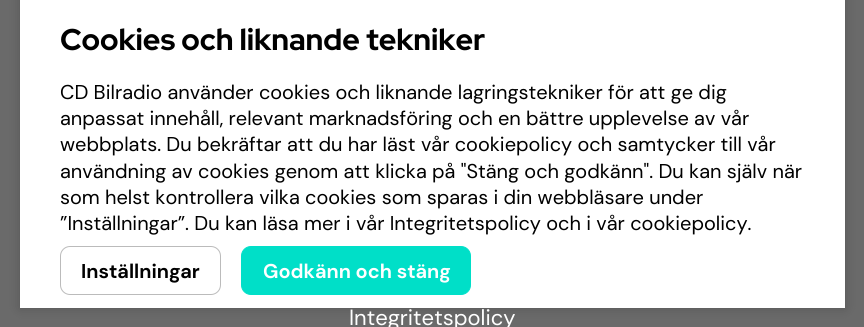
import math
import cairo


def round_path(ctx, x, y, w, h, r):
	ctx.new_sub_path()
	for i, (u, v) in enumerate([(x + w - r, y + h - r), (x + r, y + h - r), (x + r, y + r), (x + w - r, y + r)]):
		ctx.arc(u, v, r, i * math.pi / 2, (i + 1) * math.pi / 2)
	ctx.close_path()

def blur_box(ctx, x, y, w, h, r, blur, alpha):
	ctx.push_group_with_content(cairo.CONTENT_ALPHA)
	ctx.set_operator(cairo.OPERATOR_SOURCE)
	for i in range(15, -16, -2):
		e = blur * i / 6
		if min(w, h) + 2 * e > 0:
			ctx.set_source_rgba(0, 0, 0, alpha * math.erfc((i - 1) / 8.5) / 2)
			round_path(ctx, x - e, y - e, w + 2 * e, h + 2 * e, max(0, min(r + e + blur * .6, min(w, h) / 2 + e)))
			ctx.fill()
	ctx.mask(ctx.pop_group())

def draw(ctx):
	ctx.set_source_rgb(0.416, 0.416, 0.416)
	ctx.paint()
	ctx.set_source_rgb(0, 0, 0)
	blur_box(ctx, 20, -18, 825, 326, 0, 6, 0.2)
	ctx.set_source_rgb(1, 1, 1)
	ctx.rectangle(20, 0, 825, 308)
	ctx.fill()
	ctx.select_font_face('Red Hat Display', cairo.FONT_SLANT_NORMAL, cairo.FONT_WEIGHT_BOLD)
	ctx.set_font_size(30)
	ctx.set_source_rgb(0, 0, 0)
	ctx.move_to(60, 50)
	ctx.show_text('Cookies och liknande tekniker')
	ctx.select_font_face('DM Sans')
	ctx.set_font_size(20)
	for x, y, s in [
		(60, 99, 'CD Bilradio använder cookies och liknande lagringstekniker för att ge dig'),
		(60, 125, 'anpassat innehåll, relevant marknadsföring och en bättre upplevelse av vår'),
		(60, 151, 'webbplats. Du bekräftar att du har läst vår cookiepolicy och samtycker till vår'),
		(60, 178, 'användning av cookies genom att klicka på "Stäng och godkänn". Du kan själv när'),
		(60, 204, 'som helst kontrollera vilka cookies som sparas i din webbläsare under'),
		(60, 230, '”Inställningar”. Du kan läsa mer i vår Integritetspolicy och i vår cookiepolicy.'),
	]:
		ctx.move_to(x, y)
		ctx.show_text(s)
	round_path(ctx, 60.5, 246.5, 160, 48, 9.5)
	ctx.set_source_rgb(0.733, 0.733, 0.733)
	ctx.set_line_width(1)
	ctx.stroke()
	ctx.select_font_face('DM Sans', cairo.FONT_SLANT_NORMAL, cairo.FONT_WEIGHT_BOLD)
	ctx.set_source_rgb(0, 0, 0)
	ctx.move_to(81, 278)
	ctx.show_text('Inställningar')
	ctx.set_source_rgb(0, 0.875, 0.784)
	round_path(ctx, 241.5, 246.5, 229, 48, 9.5)
	ctx.fill_preserve()
	ctx.stroke()
	ctx.set_source_rgb(1, 1, 1)
	ctx.move_to(263, 278)
	ctx.show_text('Godkänn och stäng')
	ctx.select_font_face('DM Sans')
	ctx.set_font_size(22)
	ctx.move_to(349, 325)
	ctx.show_text('Integritetspolicy')


surface = cairo.ImageSurface(cairo.FORMAT_RGB24, 864, 327)
ctx = cairo.Context(surface)
options = cairo.FontOptions()
options.set_hint_metrics(cairo.HINT_METRICS_OFF)
options.set_hint_style(cairo.HINT_STYLE_NONE)
ctx.set_font_options(options)
ctx.set_miter_limit(4)
draw(ctx)
surface.write_to_png('image.png')
